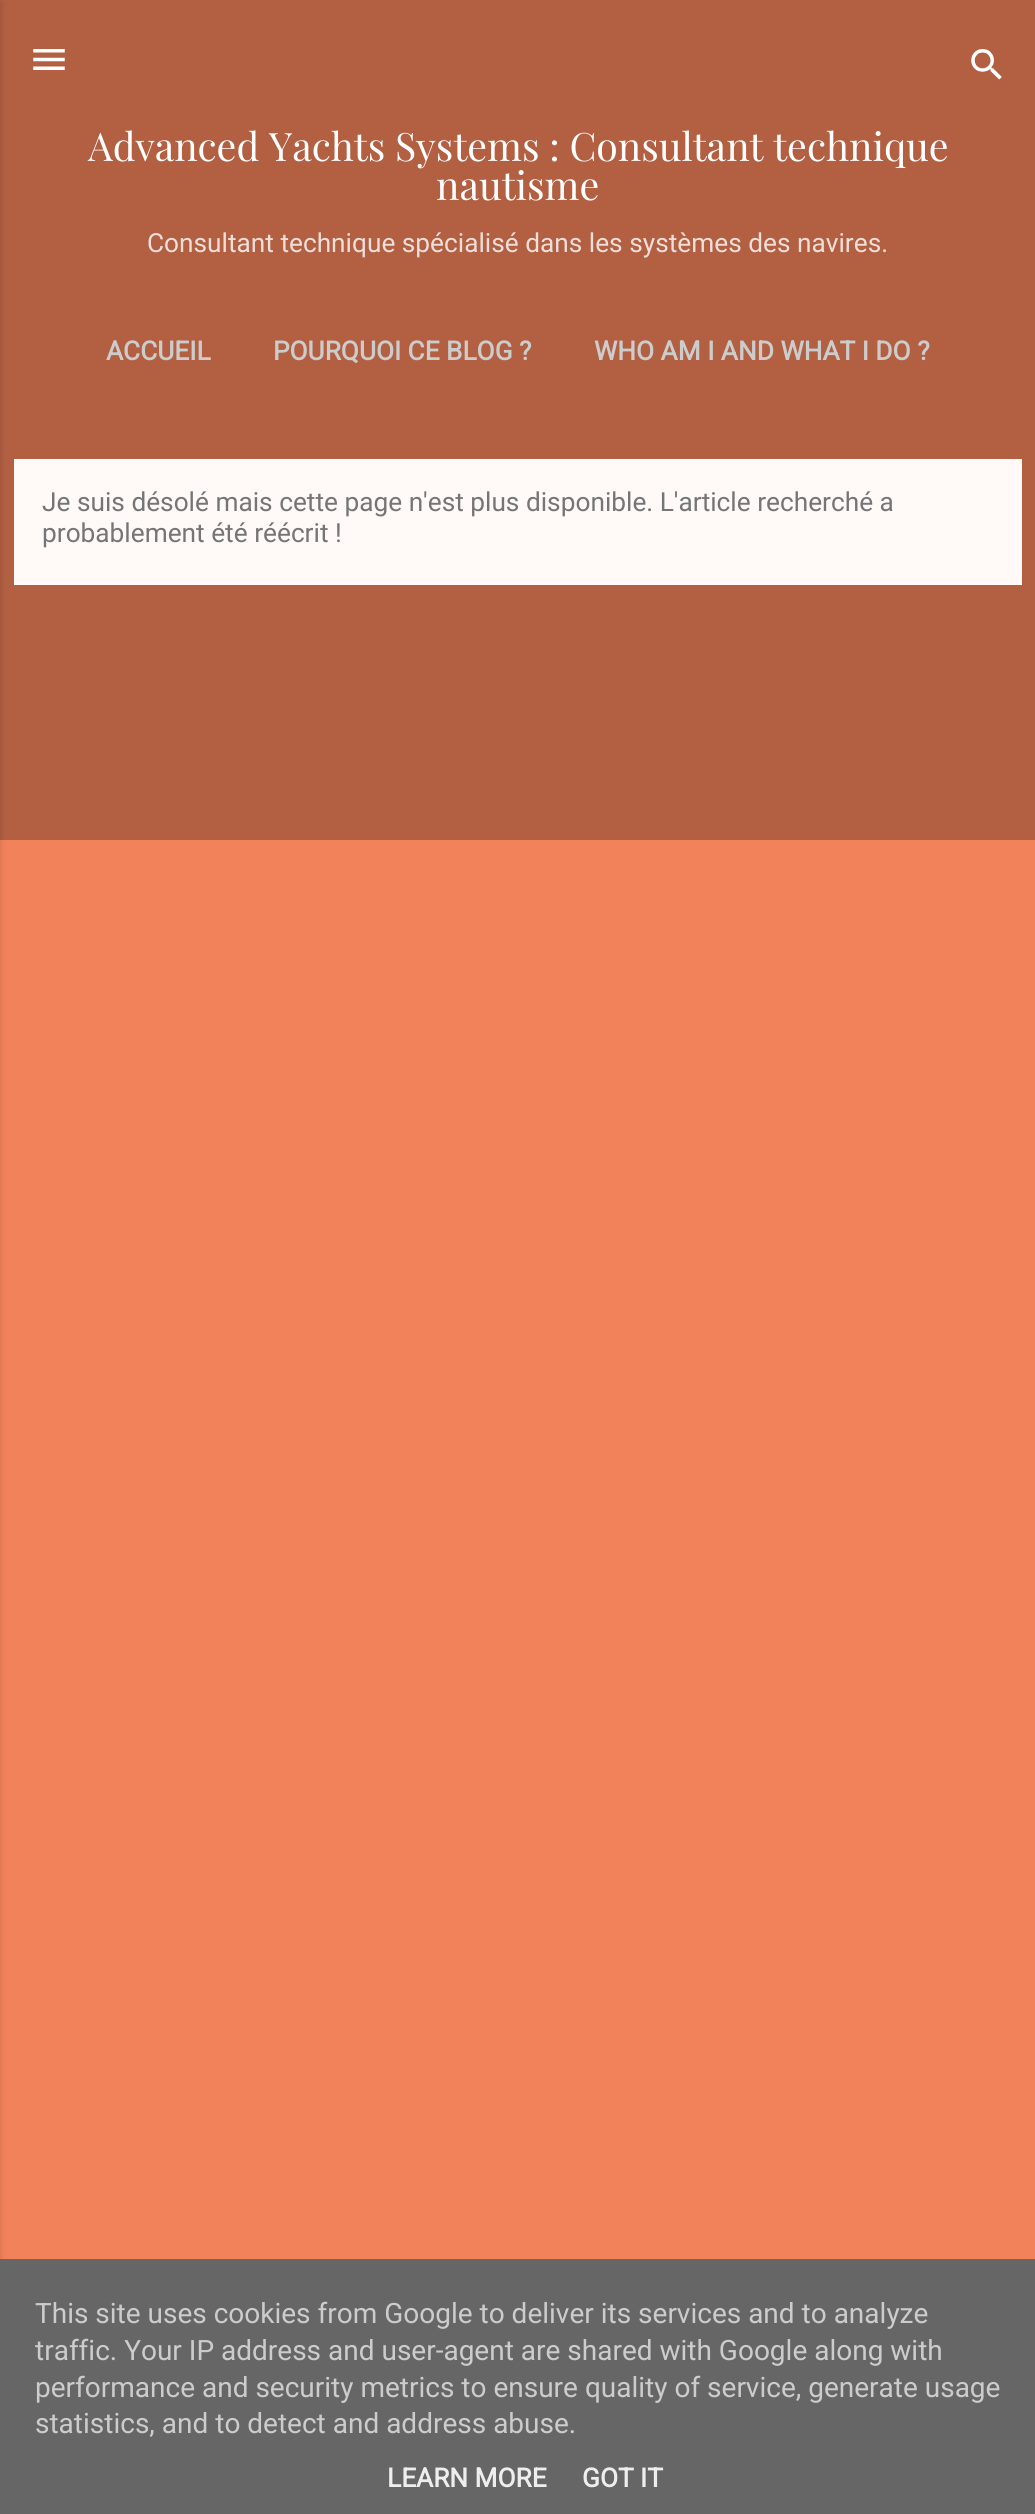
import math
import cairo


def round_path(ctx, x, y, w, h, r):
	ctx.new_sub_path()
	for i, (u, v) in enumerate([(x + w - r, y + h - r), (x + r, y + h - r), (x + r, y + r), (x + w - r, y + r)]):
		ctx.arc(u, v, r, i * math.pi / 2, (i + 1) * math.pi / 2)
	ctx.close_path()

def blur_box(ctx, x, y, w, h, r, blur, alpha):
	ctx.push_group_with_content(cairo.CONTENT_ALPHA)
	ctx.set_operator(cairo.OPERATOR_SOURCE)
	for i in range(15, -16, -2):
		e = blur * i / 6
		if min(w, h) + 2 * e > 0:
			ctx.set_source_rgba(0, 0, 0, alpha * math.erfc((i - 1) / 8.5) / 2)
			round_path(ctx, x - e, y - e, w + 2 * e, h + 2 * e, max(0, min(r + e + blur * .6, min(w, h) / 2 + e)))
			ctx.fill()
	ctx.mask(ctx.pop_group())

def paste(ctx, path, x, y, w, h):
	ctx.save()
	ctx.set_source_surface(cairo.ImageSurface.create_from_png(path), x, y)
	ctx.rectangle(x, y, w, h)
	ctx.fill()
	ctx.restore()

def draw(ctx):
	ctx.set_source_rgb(0.949, 0.51, 0.353)
	ctx.paint()
	ctx.set_source_rgb(0.698, 0.373, 0.259)
	ctx.rectangle(0, 0, 1035, 840)
	ctx.fill()
	ctx.set_source_rgb(0, 0, 0)
	blur_box(ctx, -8, 2, 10, 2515, 0, 2.5, 0.1)
	paste(ctx, 'media/1.png', 33, 49, 32, 21)
	paste(ctx, 'media/2.png', 971, 49, 31, 31)
	ctx.select_font_face('Playfair Display')
	ctx.set_font_size(39.2)
	ctx.set_source_rgb(1, 1, 1)
	ctx.move_to(88, 161)
	ctx.show_text('Advanced Yachts Systems : Consultant technique')
	ctx.move_to(436, 200)
	ctx.show_text('nautisme')
	ctx.select_font_face('Roboto')
	ctx.set_font_size(26.25)
	ctx.set_source_rgb(0.941, 0.875, 0.851)
	ctx.move_to(147, 252)
	ctx.show_text('Consultant technique spécialisé dans les systèmes des navires.')
	ctx.select_font_face('Roboto', cairo.FONT_SLANT_NORMAL, cairo.FONT_WEIGHT_BOLD)
	ctx.set_source_rgb(0.8, 0.8, 0.8)
	for x, y, s in [
		(106, 360, 'ACCUEIL'),
		(273, 360, 'POURQUOI CE BLOG ?'),
		(594, 360, 'WHO AM I AND WHAT I DO ?'),
	]:
		ctx.move_to(x, y)
		ctx.show_text(s)
	ctx.set_source_rgb(1, 0.973, 0.965)
	ctx.rectangle(14, 459, 1008, 126)
	ctx.fill()
	ctx.select_font_face('Roboto')
	ctx.set_source_rgb(0.459, 0.459, 0.459)
	ctx.move_to(42, 511)
	ctx.show_text('Je suis désolé mais cette page n\'est plus disponible. L\'article recherché a')
	ctx.move_to(42, 542)
	ctx.show_text('probablement été réécrit !')
	ctx.set_source_rgb(0.4, 0.4, 0.4)
	ctx.rectangle(0, 2259, 1035, 255)
	ctx.fill()
	ctx.set_font_size(28)
	ctx.set_source_rgb(0.8, 0.8, 0.8)
	for x, y, s in [
		(35, 2323, 'This site uses cookies from Google to deliver its services and to analyze'),
		(35, 2360, 'traffic. Your IP address and user-agent are shared with Google along with'),
		(35, 2397, 'performance and security metrics to ensure quality of service, generate usage'),
		(35, 2433, 'statistics, and to detect and address abuse.'),
	]:
		ctx.move_to(x, y)
		ctx.show_text(s)
	ctx.select_font_face('Roboto', cairo.FONT_SLANT_NORMAL, cairo.FONT_WEIGHT_BOLD)
	ctx.set_font_size(26.25)
	ctx.set_source_rgb(0.933, 0.933, 0.933)
	ctx.move_to(387, 2487)
	ctx.show_text('LEARN MORE')
	ctx.move_to(582, 2487)
	ctx.show_text('GOT IT')


surface = cairo.ImageSurface(cairo.FORMAT_RGB24, 1035, 2514)
ctx = cairo.Context(surface)
options = cairo.FontOptions()
options.set_hint_metrics(cairo.HINT_METRICS_OFF)
options.set_hint_style(cairo.HINT_STYLE_NONE)
ctx.set_font_options(options)
ctx.set_miter_limit(4)
draw(ctx)
surface.write_to_png('image.png')
